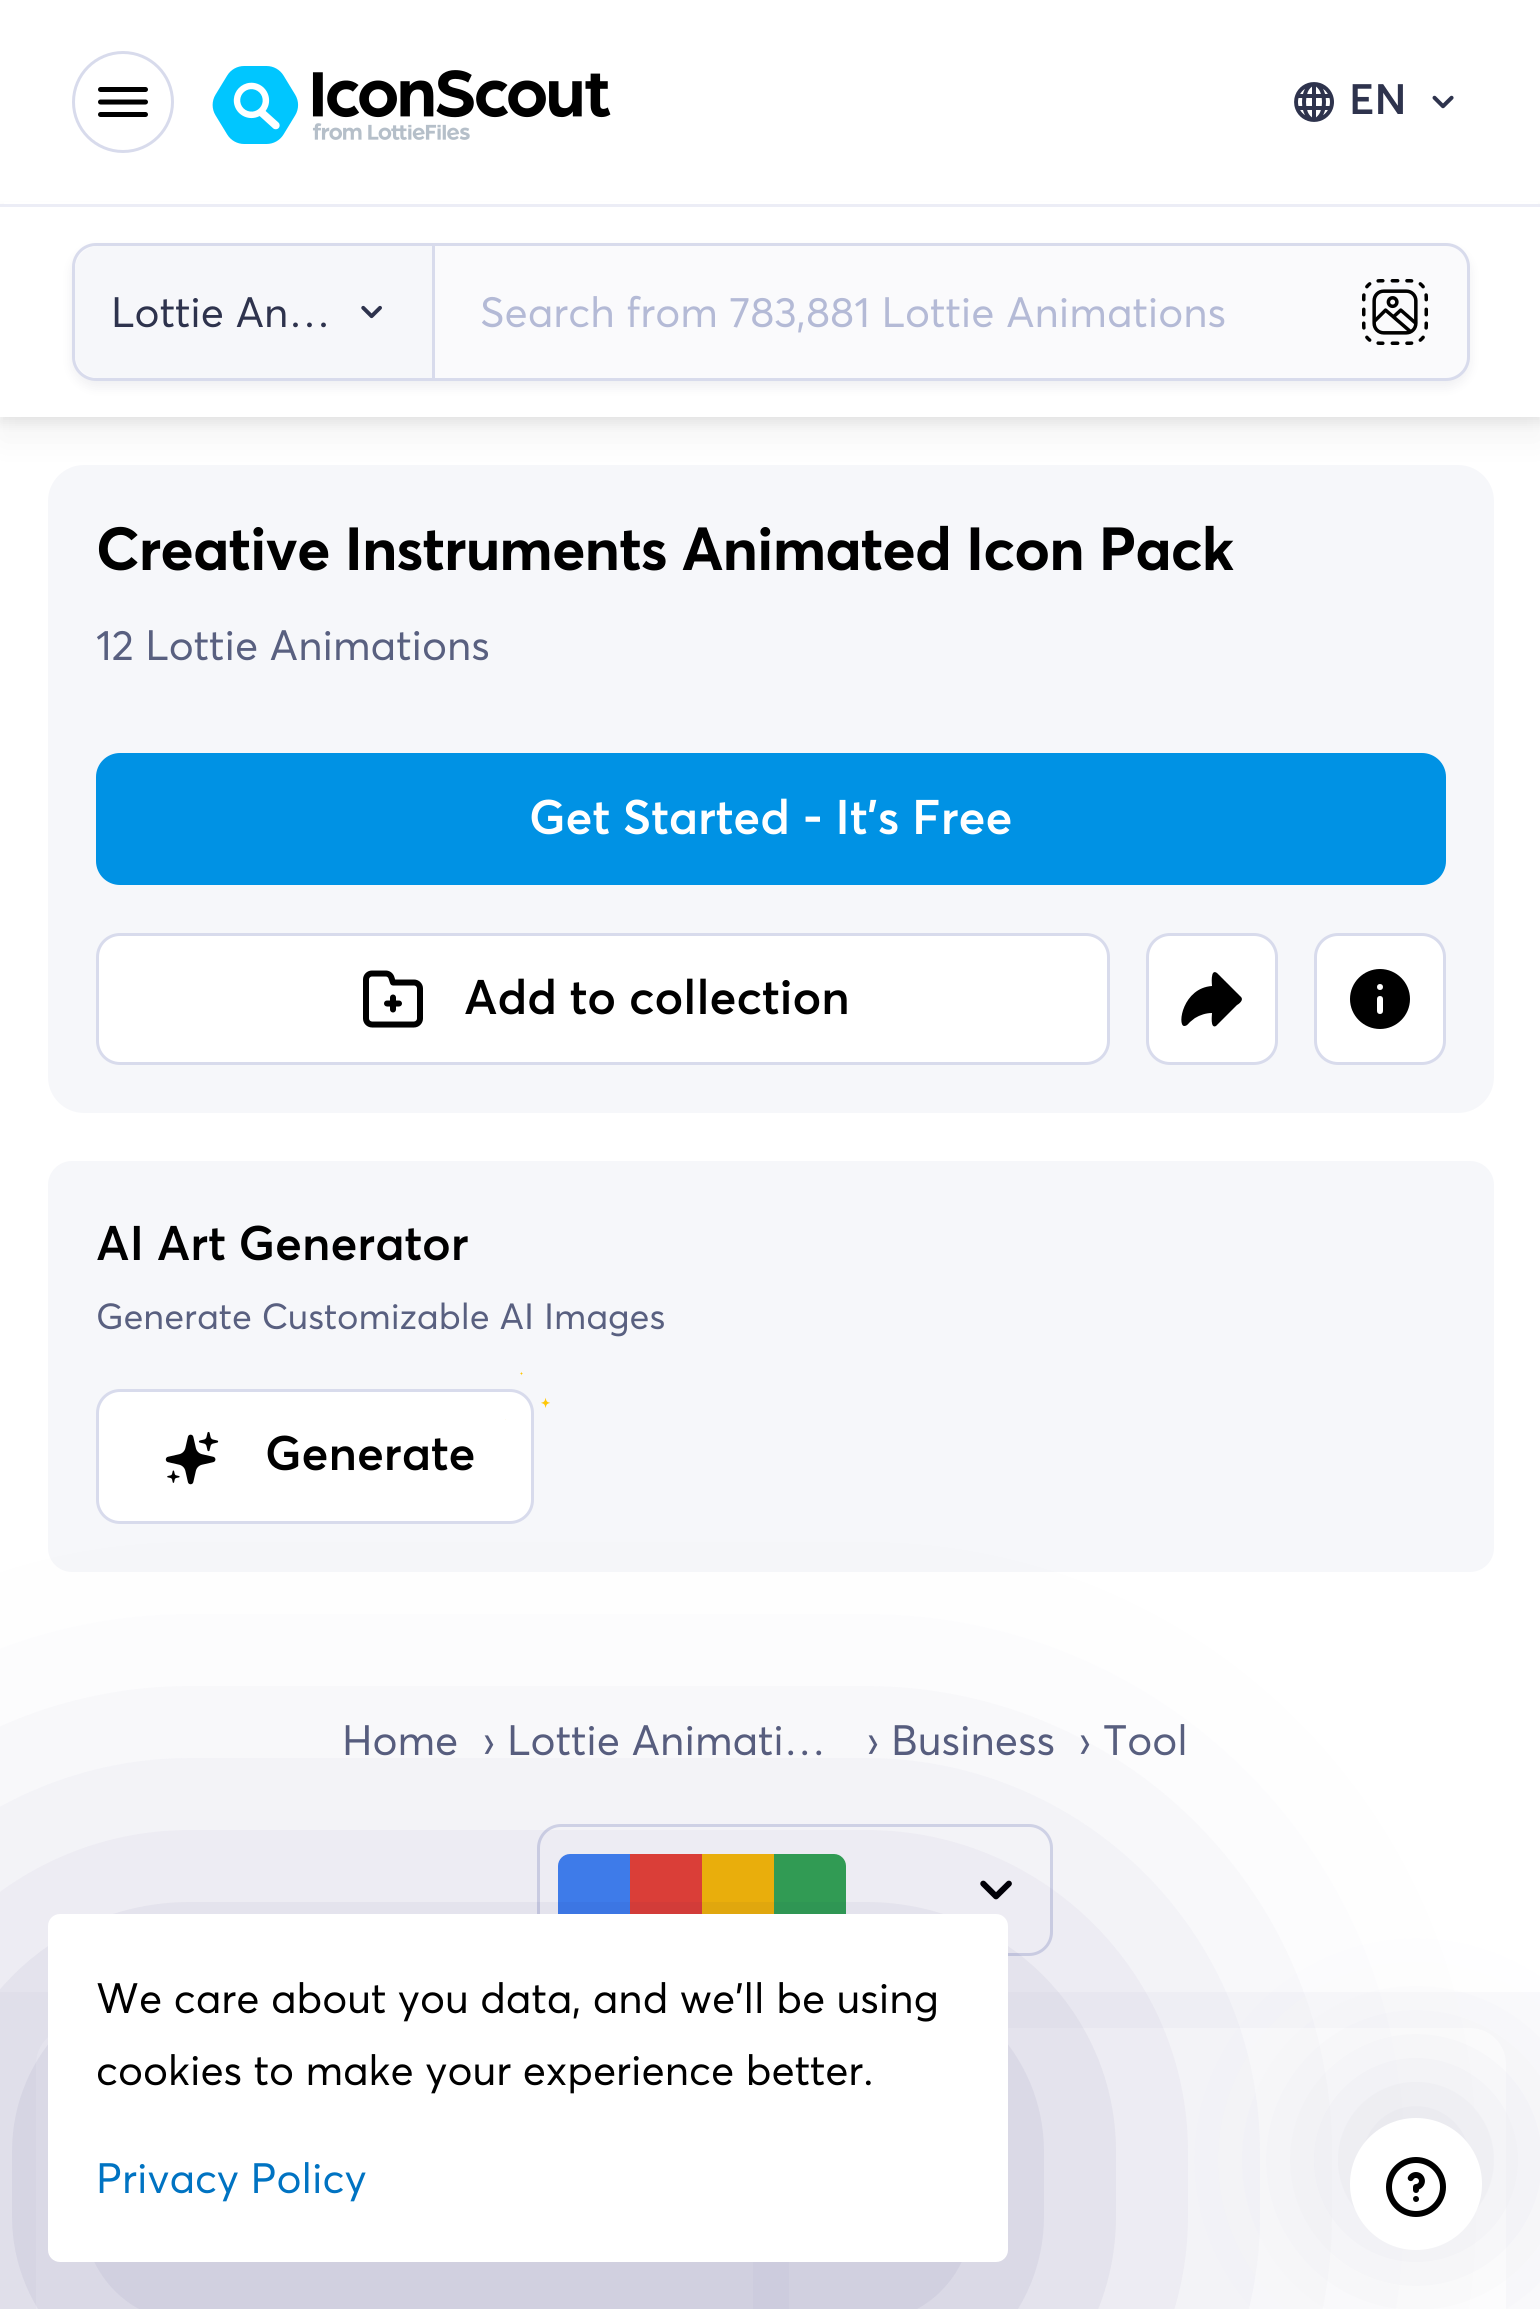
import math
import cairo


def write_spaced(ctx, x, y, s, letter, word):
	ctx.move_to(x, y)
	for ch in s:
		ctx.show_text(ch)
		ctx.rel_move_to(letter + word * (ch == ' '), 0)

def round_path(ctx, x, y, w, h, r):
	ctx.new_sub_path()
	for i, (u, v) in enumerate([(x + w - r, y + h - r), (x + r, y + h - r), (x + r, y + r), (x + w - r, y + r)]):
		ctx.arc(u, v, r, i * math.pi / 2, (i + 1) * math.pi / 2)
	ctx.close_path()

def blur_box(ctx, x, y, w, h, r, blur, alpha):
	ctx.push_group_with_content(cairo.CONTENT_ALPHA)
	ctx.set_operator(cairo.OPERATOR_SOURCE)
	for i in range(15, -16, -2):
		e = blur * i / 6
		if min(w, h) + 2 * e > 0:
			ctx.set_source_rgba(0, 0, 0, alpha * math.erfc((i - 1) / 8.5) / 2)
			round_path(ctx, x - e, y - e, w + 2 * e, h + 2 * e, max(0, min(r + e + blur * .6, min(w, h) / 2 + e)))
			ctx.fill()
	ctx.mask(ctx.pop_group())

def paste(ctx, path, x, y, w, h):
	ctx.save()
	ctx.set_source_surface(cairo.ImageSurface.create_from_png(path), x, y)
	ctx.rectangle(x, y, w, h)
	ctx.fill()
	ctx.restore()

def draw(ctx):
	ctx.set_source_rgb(1, 1, 1)
	ctx.paint()
	ctx.set_source_rgb(0, 0, 0)
	blur_box(ctx, 0, 228, 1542, 213, 0, 18, 0.04)
	blur_box(ctx, 0, 210, 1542, 213, 0, 6, 0.08)
	ctx.set_source_rgb(1, 1, 1)
	ctx.rectangle(0, 207, 1540, 210)
	ctx.fill()
	ctx.rectangle(4, 202, 1534, 2)
	ctx.fill()
	ctx.arc(123, 102, 49.5, 0, 2 * math.pi)
	ctx.set_source_rgb(0.847, 0.859, 0.922)
	ctx.set_line_width(3)
	ctx.stroke()
	paste(ctx, 'media/1.png', 98, 87, 50, 30)
	paste(ctx, 'media/2.png', 212, 66, 399, 78)
	paste(ctx, 'media/3.png', 1294, 82, 40, 40)
	ctx.select_font_face('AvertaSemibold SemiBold')
	ctx.set_font_size(42)
	ctx.set_source_rgb(0.18, 0.2, 0.302)
	ctx.move_to(1349, 114)
	ctx.show_text('EN')
	paste(ctx, 'media/4.png', 1432, 95, 22, 14)
	ctx.set_source_rgb(0.922, 0.929, 0.961)
	ctx.rectangle(0, 204, 1540, 3)
	ctx.fill()
	ctx.set_source_rgb(0.192, 0.208, 0.333)
	blur_box(ctx, 72, 249, 1398, 138, 24, 6, 0.08)
	ctx.set_source_rgb(0.98, 0.98, 0.988)
	round_path(ctx, 73.5, 244.5, 1395, 135, 22.5)
	ctx.fill_preserve()
	ctx.set_source_rgb(0.847, 0.859, 0.922)
	ctx.stroke()
	ctx.set_source_rgb(0.961, 0.965, 0.98)
	ctx.new_path()
	ctx.move_to(99, 246)
	ctx.line_to(435, 246)
	ctx.line_to(435, 378)
	ctx.line_to(99, 378)
	ctx.curve_to(85.5, 378, 75, 367.5, 75, 354)
	ctx.line_to(75, 270)
	ctx.curve_to(75, 256.5, 85.5, 246, 99, 246)
	ctx.close_path()
	ctx.fill()
	ctx.set_source_rgb(0.847, 0.859, 0.922)
	ctx.rectangle(432, 246, 3, 132)
	ctx.fill()
	ctx.select_font_face('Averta')
	ctx.set_source_rgb(0.18, 0.2, 0.302)
	ctx.move_to(111, 327)
	ctx.show_text('Lottie An…')
	paste(ctx, 'media/5.png', 361, 305, 21, 14)
	ctx.set_source_rgb(0.706, 0.729, 0.839)
	ctx.move_to(480, 327)
	ctx.show_text('Search from 783,881 Lottie Animations')
	paste(ctx, 'media/6.png', 1362, 279, 66, 66)
	ctx.set_source_rgb(0.961, 0.965, 0.98)
	round_path(ctx, 48, 465, 1446, 648, 36)
	ctx.fill()
	ctx.select_font_face('Averta', cairo.FONT_SLANT_NORMAL, cairo.FONT_WEIGHT_BOLD)
	ctx.set_font_size(60)
	ctx.set_source_rgb(0, 0, 0)
	write_spaced(ctx, 96, 570, 'Creative Instruments Animated Icon Pack', -0.9, 0)
	ctx.select_font_face('Averta')
	ctx.set_font_size(42)
	ctx.set_source_rgb(0.349, 0.376, 0.502)
	ctx.move_to(96, 660)
	ctx.show_text('12 Lottie Animations')
	ctx.set_source_rgb(0, 0.573, 0.894)
	round_path(ctx, 97.5, 754.5, 1347, 129, 22.5)
	ctx.fill_preserve()
	ctx.stroke()
	ctx.select_font_face('AvertaSemibold SemiBold')
	ctx.set_font_size(48)
	ctx.set_source_rgb(1, 1, 1)
	ctx.move_to(529, 834)
	ctx.show_text('Get Started - It\'s Free')
	round_path(ctx, 97.5, 934.5, 1011, 129, 22.5)
	ctx.fill_preserve()
	ctx.set_source_rgb(0.847, 0.859, 0.922)
	ctx.stroke()
	paste(ctx, 'media/7.png', 363, 970, 60, 58)
	ctx.set_source_rgb(0, 0, 0)
	ctx.move_to(464, 1014)
	ctx.show_text('Add to collection')
	ctx.set_source_rgb(1, 1, 1)
	round_path(ctx, 1147.5, 934.5, 129, 129, 22.5)
	ctx.fill_preserve()
	ctx.set_source_rgb(0.847, 0.859, 0.922)
	ctx.stroke()
	ctx.set_source_rgb(0, 0, 0)
	ctx.new_path()
	ctx.move_to(1241, 997)
	ctx.line_to(1217, 973)
	ctx.curve_to(1210, 968, 1212, 985, 1212, 986)
	ctx.curve_to(1183, 988, 1177, 1025, 1184, 1026)
	ctx.curve_to(1187, 1026, 1188, 1024, 1190, 1022)
	ctx.line_to(1195, 1018)
	ctx.curve_to(1200, 1015, 1206, 1013, 1212, 1013)
	ctx.curve_to(1212, 1015, 1210, 1029, 1216, 1026)
	ctx.line_to(1237, 1005)
	ctx.curve_to(1239, 1004, 1244, 1000, 1241, 997)
	ctx.close_path()
	ctx.fill()
	ctx.set_source_rgb(1, 1, 1)
	round_path(ctx, 1315.5, 934.5, 129, 129, 22.5)
	ctx.fill_preserve()
	ctx.set_source_rgb(0.847, 0.859, 0.922)
	ctx.stroke()
	paste(ctx, 'media/8.png', 1350, 969, 60, 60)
	ctx.set_source_rgb(0.961, 0.965, 0.98)
	round_path(ctx, 48, 1161, 1446, 411, 24)
	ctx.fill()
	ctx.set_source_rgb(0, 0, 0)
	ctx.move_to(96, 1260)
	ctx.show_text('AI Art Generator')
	ctx.select_font_face('Averta')
	ctx.set_font_size(36)
	ctx.set_source_rgb(0.349, 0.376, 0.502)
	ctx.move_to(96, 1329)
	ctx.show_text('Generate Customizable AI Images')
	ctx.set_source_rgb(1, 1, 1)
	round_path(ctx, 97.5, 1390.5, 435, 132, 22.5)
	ctx.fill_preserve()
	ctx.set_source_rgb(0.847, 0.859, 0.922)
	ctx.stroke()
	paste(ctx, 'media/9.png', 505, 1371, 45, 49)
	paste(ctx, 'media/10.png', 165, 1431, 54, 54)
	ctx.select_font_face('AvertaSemibold SemiBold')
	ctx.set_font_size(48)
	ctx.set_source_rgb(0, 0, 0)
	ctx.move_to(265, 1470)
	ctx.show_text('Generate')
	ctx.select_font_face('Averta')
	ctx.set_font_size(42)
	ctx.set_source_rgb(0.349, 0.376, 0.502)
	for x, y, s in [
		(342, 1755, 'Home'),
		(483, 1755, '›'),
		(507, 1755, 'Lottie Animati…'),
		(867, 1755, '›'),
		(891, 1755, 'Business'),
		(1079, 1755, '›'),
		(1103, 1755, 'Tool'),
	]:
		ctx.move_to(x, y)
		ctx.show_text(s)
	round_path(ctx, 538.5, 1825.5, 513, 129, 22.5)
	ctx.set_source_rgb(0.847, 0.859, 0.922)
	ctx.stroke()
	ctx.set_source_rgb(0.259, 0.522, 0.957)
	ctx.new_path()
	ctx.move_to(570, 1854)
	ctx.line_to(630, 1854)
	ctx.line_to(630, 1926)
	ctx.line_to(570, 1926)
	ctx.curve_to(563.5, 1926, 558, 1920.5, 558, 1914)
	ctx.line_to(558, 1866)
	ctx.curve_to(558, 1859.5, 563.5, 1854, 570, 1854)
	ctx.close_path()
	ctx.fill()
	ctx.set_source_rgb(0.918, 0.263, 0.208)
	ctx.rectangle(630, 1854, 72, 60)
	ctx.fill()
	ctx.set_source_rgb(0.984, 0.737, 0.02)
	ctx.rectangle(702, 1854, 72, 60)
	ctx.fill()
	ctx.set_source_rgb(0.204, 0.659, 0.325)
	ctx.new_path()
	ctx.move_to(774, 1854)
	ctx.line_to(834, 1854)
	ctx.curve_to(840.5, 1854, 846, 1859.5, 846, 1866)
	ctx.line_to(846, 1914)
	ctx.curve_to(846, 1920.5, 840.5, 1926, 834, 1926)
	ctx.line_to(774, 1926)
	ctx.close_path()
	ctx.fill()
	paste(ctx, 'media/11.png', 980, 1880, 32, 20)
	ctx.set_source_rgb(0.98, 0.98, 0.988)
	ctx.rectangle(0, 1992, 1540, 317)
	ctx.fill()
	ctx.set_source_rgb(1, 1, 1)
	round_path(ctx, 36, 2028, 717, 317, 36)
	ctx.fill()
	round_path(ctx, 789, 2028, 717, 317, 36)
	ctx.fill()
	ctx.set_source_rgb(0.039, 0.012, 0.349)
	blur_box(ctx, 48, 2010, 960, 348, 12, 216, 0.3)
	ctx.set_source_rgb(1, 1, 1)
	round_path(ctx, 48, 1914, 960, 348, 12)
	ctx.fill()
	ctx.set_source_rgb(0, 0, 0)
	ctx.move_to(96, 2013)
	ctx.show_text('We care about you data, and we’ll be using')
	ctx.move_to(96, 2085)
	ctx.show_text('cookies to make your experience better.')
	ctx.set_source_rgb(0, 0.451, 0.761)
	ctx.move_to(96, 2193)
	ctx.show_text('Privacy Policy')
	ctx.set_source_rgb(0.878, 0.878, 0.91)
	blur_box(ctx, 1350, 2094, 132, 132, 66, 72, 1)
	ctx.set_source_rgb(1, 1, 1)
	ctx.arc(1416, 2184, 66, 0, 2 * math.pi)
	ctx.fill()
	paste(ctx, 'media/12.png', 1386, 2157, 60, 60)


surface = cairo.ImageSurface(cairo.FORMAT_RGB24, 1540, 2309)
ctx = cairo.Context(surface)
options = cairo.FontOptions()
options.set_hint_metrics(cairo.HINT_METRICS_OFF)
options.set_hint_style(cairo.HINT_STYLE_NONE)
ctx.set_font_options(options)
ctx.set_miter_limit(4)
draw(ctx)
surface.write_to_png('image.png')
